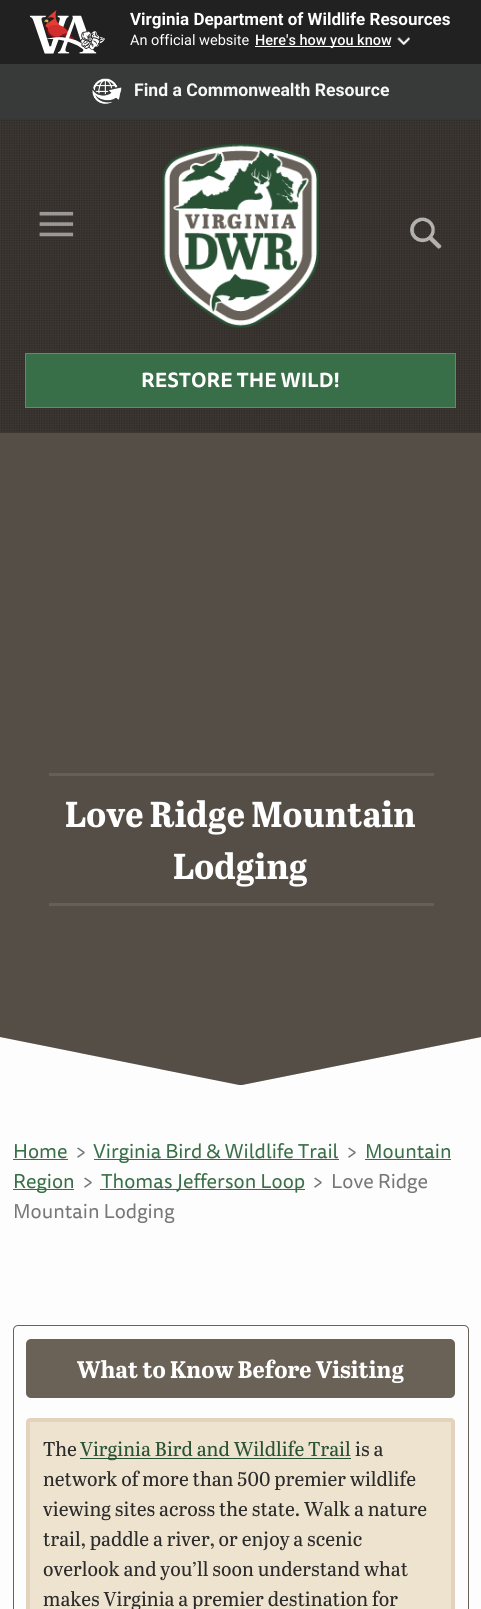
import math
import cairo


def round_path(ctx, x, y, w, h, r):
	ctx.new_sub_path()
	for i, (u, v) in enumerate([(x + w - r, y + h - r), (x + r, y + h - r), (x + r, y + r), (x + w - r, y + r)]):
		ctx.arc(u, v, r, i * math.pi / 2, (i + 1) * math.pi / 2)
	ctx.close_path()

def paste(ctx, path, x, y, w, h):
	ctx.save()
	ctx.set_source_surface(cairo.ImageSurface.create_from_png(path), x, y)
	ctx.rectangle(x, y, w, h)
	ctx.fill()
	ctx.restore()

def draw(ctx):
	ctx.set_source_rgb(0.992, 0.992, 0.992)
	ctx.paint()
	ctx.set_source_rgb(0.129, 0.129, 0.129)
	ctx.rectangle(0, 0, 481, 64)
	ctx.fill()
	paste(ctx, 'media/1.png', 30, 10, 75, 44)
	ctx.select_font_face('Roboto', cairo.FONT_SLANT_NORMAL, cairo.FONT_WEIGHT_BOLD)
	ctx.set_font_size(17)
	ctx.set_source_rgb(1, 1, 1)
	ctx.move_to(130, 25)
	ctx.show_text('Virginia Department of Wildlife Resources')
	ctx.select_font_face('Roboto')
	ctx.set_font_size(14.5)
	ctx.move_to(130, 45)
	ctx.show_text('An official website')
	ctx.rectangle(255, 46, 136, 1)
	ctx.fill()
	ctx.select_font_face('Roboto Medium')
	ctx.move_to(255, 45)
	ctx.show_text('Here\'s how you know')
	paste(ctx, 'media/2.png', 397, 37, 13, 8)
	ctx.set_source_rgb(0.22, 0.224, 0.224)
	ctx.rectangle(0, 64, 481, 55)
	ctx.fill()
	paste(ctx, 'media/3.png', 92, 78, 30, 26)
	ctx.select_font_face('Roboto', cairo.FONT_SLANT_NORMAL, cairo.FONT_WEIGHT_BOLD)
	ctx.set_font_size(17.6)
	ctx.set_source_rgb(0.965, 0.965, 0.965)
	ctx.move_to(134, 96)
	ctx.show_text('Find a Commonwealth Resource')
	ctx.set_source_rgb(0.416, 0.38, 0.341)
	ctx.new_path()
	ctx.move_to(0, 119)
	ctx.line_to(0, 1037)
	ctx.line_to(239, 1085)
	ctx.line_to(242, 1085)
	ctx.line_to(481, 1037)
	ctx.line_to(481, 119)
	ctx.close_path()
	ctx.fill()
	ctx.set_source_rgba(0, 0, 0, 0.2)
	ctx.new_path()
	ctx.move_to(0, 119)
	ctx.line_to(0, 1037)
	ctx.line_to(239, 1085)
	ctx.line_to(242, 1085)
	ctx.line_to(481, 1037)
	ctx.line_to(481, 119)
	ctx.close_path()
	ctx.fill()
	ctx.set_source_rgb(0.231, 0.212, 0.192)
	ctx.rectangle(0, 119, 481, 314)
	ctx.fill()
	paste(ctx, 'media/4.png', 1, 120, 479, 312)
	ctx.select_font_face('Liberation Serif')
	ctx.set_font_size(72)
	ctx.set_source_rgb(0.608, 0.6, 0.588)
	ctx.move_to(36, 248)
	ctx.show_text('≡')
	paste(ctx, 'media/5.png', 162, 143, 157, 185)
	paste(ctx, 'media/6.png', 410, 217, 32, 32)
	ctx.set_source_rgb(0.224, 0.435, 0.282)
	ctx.rectangle(25.5, 353.5, 430, 54)
	ctx.fill_preserve()
	ctx.set_source_rgb(0.38, 0.549, 0.427)
	ctx.set_line_width(1)
	ctx.stroke()
	ctx.select_font_face('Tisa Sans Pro', cairo.FONT_SLANT_NORMAL, cairo.FONT_WEIGHT_BOLD)
	ctx.set_font_size(20)
	ctx.set_source_rgb(1, 1, 1)
	ctx.move_to(141, 387)
	ctx.show_text('RESTORE THE WILD!')
	ctx.set_source_rgb(0.4, 0.373, 0.345)
	ctx.rectangle(49, 773, 385, 3)
	ctx.fill()
	ctx.select_font_face('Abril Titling', cairo.FONT_SLANT_NORMAL, cairo.FONT_WEIGHT_BOLD)
	ctx.set_font_size(36)
	ctx.set_source_rgb(1, 1, 1)
	ctx.move_to(65, 827)
	ctx.show_text('Love Ridge Mountain')
	ctx.move_to(173, 879)
	ctx.show_text('Lodging')
	ctx.set_source_rgb(0.4, 0.373, 0.345)
	ctx.rectangle(49, 903, 385, 3)
	ctx.fill()
	ctx.select_font_face('Tisa Sans Pro')
	ctx.set_font_size(20)
	ctx.set_source_rgb(0.224, 0.435, 0.282)
	ctx.move_to(13, 1158)
	ctx.show_text('Home')
	ctx.rectangle(13, 1159, 55, 1)
	ctx.fill()
	ctx.set_source_rgb(0.467, 0.467, 0.467)
	ctx.move_to(75, 1158)
	ctx.show_text('>')
	ctx.set_source_rgb(0.224, 0.435, 0.282)
	ctx.rectangle(94, 1159, 245, 1)
	ctx.fill()
	ctx.move_to(93, 1158)
	ctx.show_text('Virginia Bird & Wildlife Trail')
	ctx.set_source_rgb(0.467, 0.467, 0.467)
	ctx.move_to(346, 1158)
	ctx.show_text('>')
	ctx.set_source_rgb(0.224, 0.435, 0.282)
	ctx.move_to(365, 1158)
	ctx.show_text('Mountain')
	ctx.rectangle(365, 1159, 86, 1)
	ctx.fill()
	ctx.rectangle(13, 1189, 61, 1)
	ctx.fill()
	ctx.move_to(13, 1188)
	ctx.show_text('Region')
	ctx.set_source_rgb(0.467, 0.467, 0.467)
	ctx.move_to(82, 1188)
	ctx.show_text('>')
	ctx.set_source_rgb(0.224, 0.435, 0.282)
	ctx.rectangle(100, 1189, 205, 1)
	ctx.fill()
	ctx.move_to(101, 1188)
	ctx.show_text('Thomas Jefferson Loop')
	ctx.set_source_rgb(0.467, 0.467, 0.467)
	for x, y, s in [
		(312, 1188, '>'),
		(331, 1188, 'Love Ridge'),
		(13, 1218, 'Mountain Lodging'),
	]:
		ctx.move_to(x, y)
		ctx.show_text(s)
	round_path(ctx, 13.5, 1325.5, 455, 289, 4.5)
	ctx.set_source_rgb(0.416, 0.38, 0.341)
	ctx.stroke()
	round_path(ctx, 26, 1339, 429, 59, 5)
	ctx.fill()
	ctx.select_font_face('Abril Titling', cairo.FONT_SLANT_NORMAL, cairo.FONT_WEIGHT_BOLD)
	ctx.set_font_size(24)
	ctx.set_source_rgb(1, 1, 1)
	ctx.move_to(77, 1378)
	ctx.show_text('What to Know Before Visiting')
	ctx.set_source_rgb(0.933, 0.89, 0.812)
	round_path(ctx, 26, 1418, 429, 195, 4)
	ctx.fill()
	round_path(ctx, 28, 1420, 425, 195, 2)
	ctx.set_source_rgba(0.475, 0.267, 0.11, 0.1)
	ctx.set_line_width(4)
	ctx.stroke()
	ctx.select_font_face('Abril Titling')
	ctx.set_font_size(20)
	ctx.set_source_rgb(0.169, 0.169, 0.169)
	ctx.move_to(43, 1456)
	ctx.show_text('The')
	ctx.set_source_rgb(0.161, 0.322, 0.208)
	ctx.rectangle(80, 1458, 271, 1)
	ctx.fill()
	ctx.move_to(80, 1456)
	ctx.show_text('Virginia Bird and Wildlife Trail')
	ctx.set_source_rgb(0.169, 0.169, 0.169)
	for x, y, s in [
		(355, 1456, 'is a'),
		(43, 1486, 'network of more than 500 premier wildlife'),
		(43, 1516, 'viewing sites across the state. Walk a nature'),
		(43, 1546, 'trail, paddle a river, or enjoy a scenic'),
		(43, 1576, 'overlook and you’ll soon understand what'),
		(43, 1606, 'makes Virginia a premier destination for'),
	]:
		ctx.move_to(x, y)
		ctx.show_text(s)


surface = cairo.ImageSurface(cairo.FORMAT_RGB24, 481, 1609)
ctx = cairo.Context(surface)
options = cairo.FontOptions()
options.set_hint_metrics(cairo.HINT_METRICS_OFF)
options.set_hint_style(cairo.HINT_STYLE_NONE)
ctx.set_font_options(options)
ctx.set_miter_limit(4)
draw(ctx)
surface.write_to_png('image.png')
